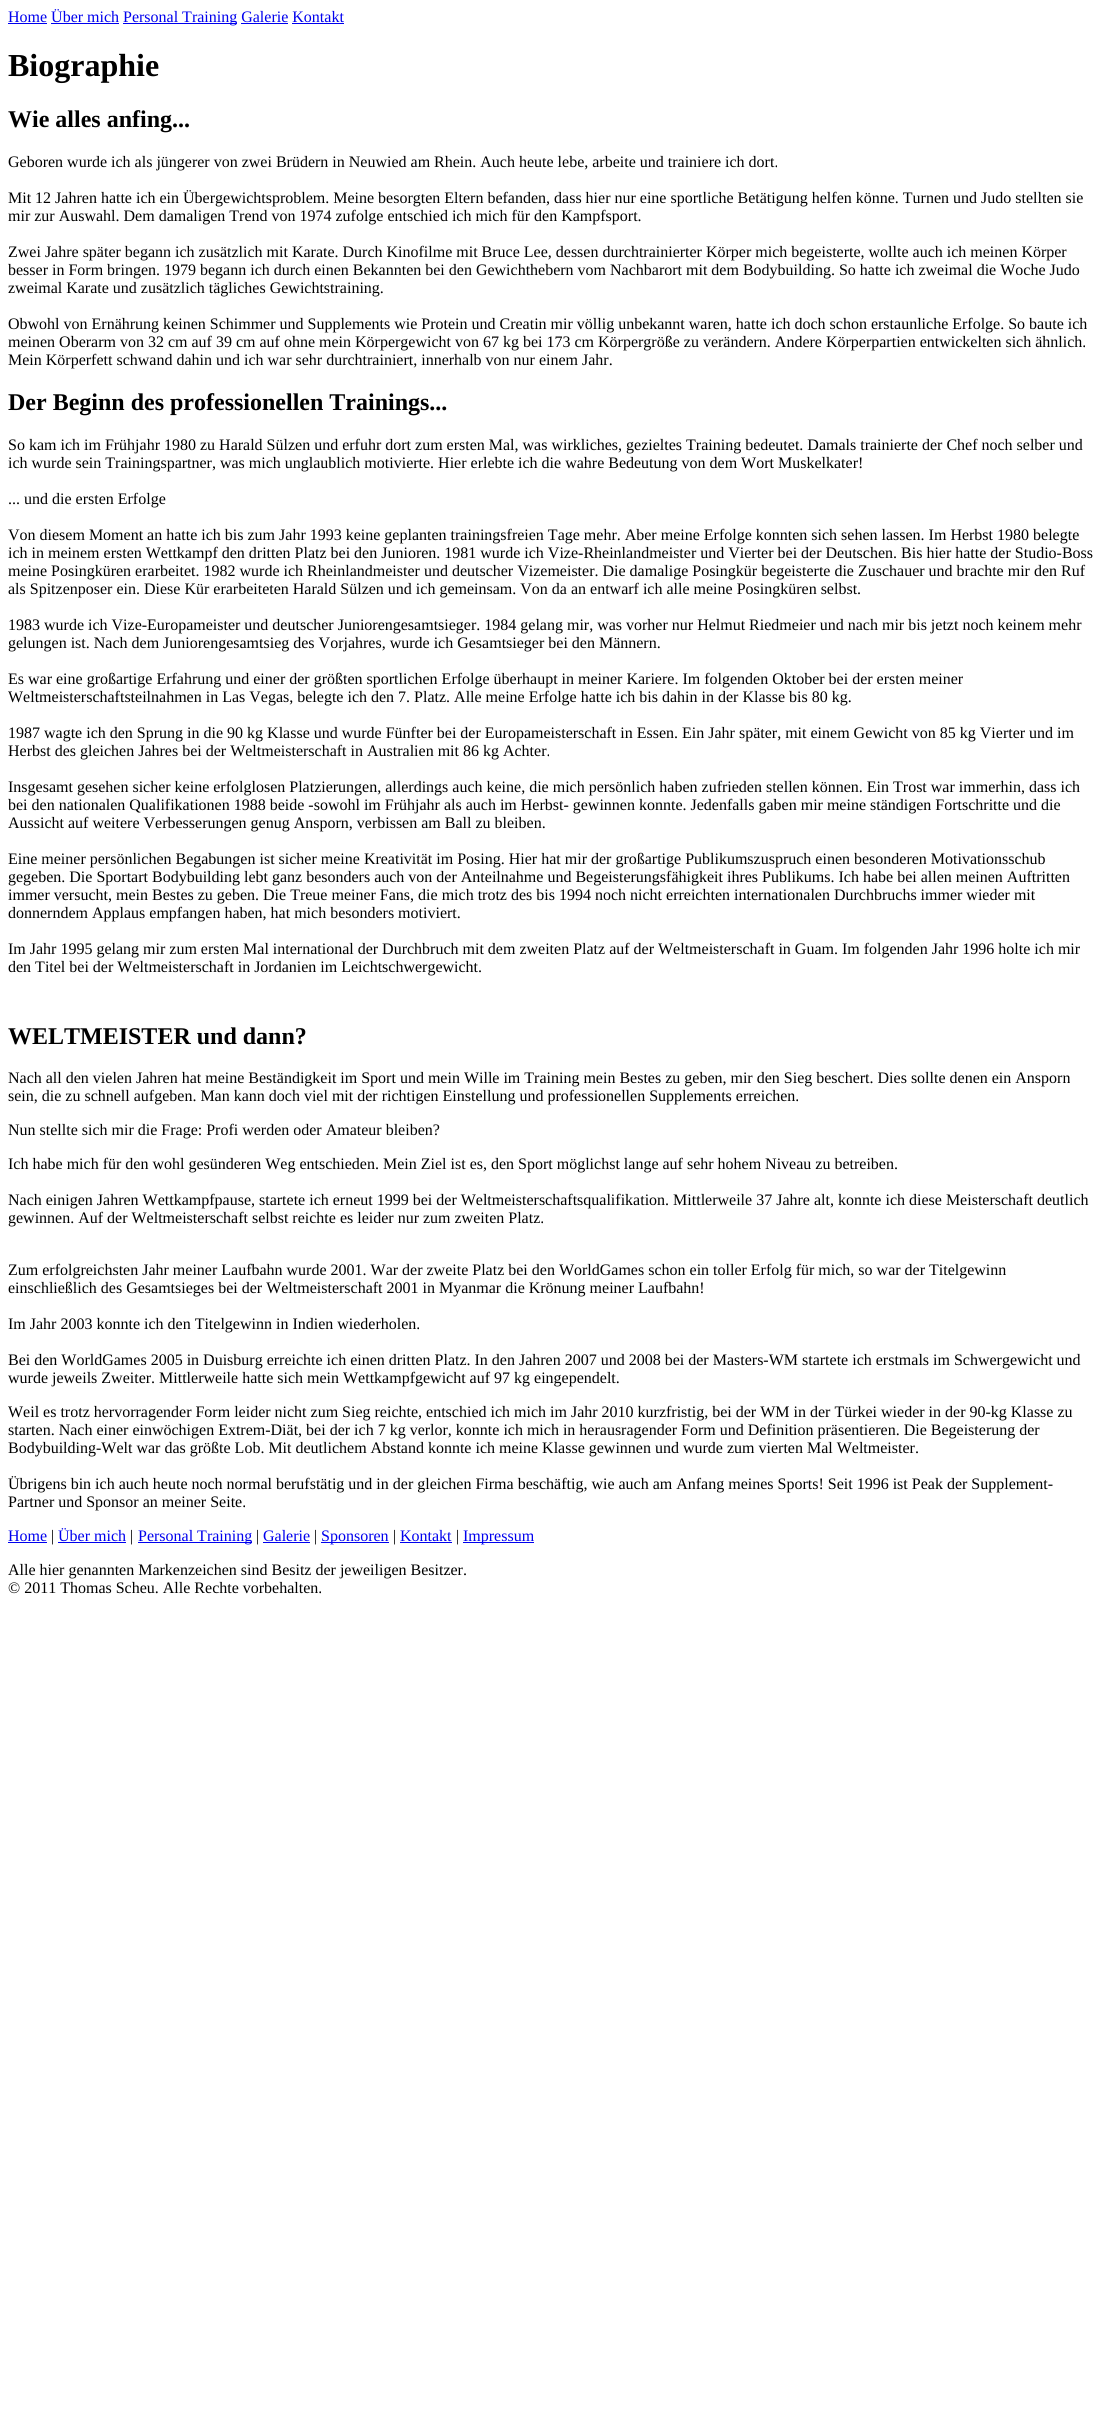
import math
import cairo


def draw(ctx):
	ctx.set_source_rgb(1, 1, 1)
	ctx.paint()
	ctx.select_font_face('Liberation Serif')
	ctx.set_font_size(16)
	ctx.set_source_rgb(0, 0, 0.933)
	ctx.move_to(8, 22)
	ctx.show_text('Home Über mich')
	ctx.rectangle(8, 23, 39, 1)
	ctx.fill()
	ctx.rectangle(123, 23, 114, 1)
	ctx.fill()
	ctx.move_to(123, 22)
	ctx.show_text('Personal Training Galerie Kontakt')
	ctx.rectangle(51, 23, 68, 1)
	ctx.rectangle(241, 23, 47, 1)
	ctx.rectangle(292, 23, 52, 1)
	ctx.fill()
	ctx.select_font_face('Liberation Serif', cairo.FONT_SLANT_NORMAL, cairo.FONT_WEIGHT_BOLD)
	ctx.set_font_size(32)
	ctx.set_source_rgb(0, 0, 0)
	ctx.move_to(8, 76)
	ctx.show_text('Biographie')
	ctx.set_font_size(24)
	ctx.move_to(8, 127)
	ctx.show_text('Wie alles anfing...')
	ctx.select_font_face('Liberation Serif')
	ctx.set_font_size(16)
	for x, y, s in [
		(8, 167, 'Geboren wurde ich als jüngerer von zwei Brüdern in Neuwied am Rhein. Auch heute lebe, arbeite und trainiere ich dort.'),
		(8, 203, 'Mit 12 Jahren hatte ich ein Übergewichtsproblem. Meine besorgten Eltern befanden, dass hier nur eine sportliche Betätigung helfen könne. Turnen und Judo stellten sie'),
		(8, 221, 'mir zur Auswahl. Dem damaligen Trend von 1974 zufolge entschied ich mich für den Kampfsport.'),
		(8, 257, 'Zwei Jahre später begann ich zusätzlich mit Karate. Durch Kinofilme mit Bruce Lee, dessen durchtrainierter Körper mich begeisterte, wollte auch ich meinen Körper'),
		(8, 275, 'besser in Form bringen. 1979 begann ich durch einen Bekannten bei den Gewichthebern vom Nachbarort mit dem Bodybuilding. So hatte ich zweimal die Woche Judo'),
		(8, 293, 'zweimal Karate und zusätzlich tägliches Gewichtstraining.'),
		(8, 329, 'Obwohl von Ernährung keinen Schimmer und Supplements wie Protein und Creatin mir völlig unbekannt waren, hatte ich doch schon erstaunliche Erfolge. So baute ich'),
		(8, 347, 'meinen Oberarm von 32 cm auf 39 cm auf ohne mein Körpergewicht von 67 kg bei 173 cm Körpergröße zu verändern. Andere Körperpartien entwickelten sich ähnlich.'),
		(8, 365, 'Mein Körperfett schwand dahin und ich war sehr durchtrainiert, innerhalb von nur einem Jahr.'),
	]:
		ctx.move_to(x, y)
		ctx.show_text(s)
	ctx.select_font_face('Liberation Serif', cairo.FONT_SLANT_NORMAL, cairo.FONT_WEIGHT_BOLD)
	ctx.set_font_size(24)
	ctx.move_to(8, 410)
	ctx.show_text('Der Beginn des professionellen Trainings...')
	ctx.select_font_face('Liberation Serif')
	ctx.set_font_size(16)
	for x, y, s in [
		(8, 450, 'So kam ich im Frühjahr 1980 zu Harald Sülzen und erfuhr dort zum ersten Mal, was wirkliches, gezieltes Training bedeutet. Damals trainierte der Chef noch selber und'),
		(8, 468, 'ich wurde sein Trainingspartner, was mich unglaublich motivierte. Hier erlebte ich die wahre Bedeutung von dem Wort Muskelkater!'),
		(8, 504, '... und die ersten Erfolge'),
		(8, 540, 'Von diesem Moment an hatte ich bis zum Jahr 1993 keine geplanten trainingsfreien Tage mehr. Aber meine Erfolge konnten sich sehen lassen. Im Herbst 1980 belegte'),
		(8, 558, 'ich in meinem ersten Wettkampf den dritten Platz bei den Junioren. 1981 wurde ich Vize-Rheinlandmeister und Vierter bei der Deutschen. Bis hier hatte der Studio-Boss'),
		(8, 576, 'meine Posingküren erarbeitet. 1982 wurde ich Rheinlandmeister und deutscher Vizemeister. Die damalige Posingkür begeisterte die Zuschauer und brachte mir den Ruf'),
		(8, 594, 'als Spitzenposer ein. Diese Kür erarbeiteten Harald Sülzen und ich gemeinsam. Von da an entwarf ich alle meine Posingküren selbst.'),
		(8, 630, '1983 wurde ich Vize-Europameister und deutscher Juniorengesamtsieger. 1984 gelang mir, was vorher nur Helmut Riedmeier und nach mir bis jetzt noch keinem mehr'),
		(8, 648, 'gelungen ist. Nach dem Juniorengesamtsieg des Vorjahres, wurde ich Gesamtsieger bei den Männern.'),
		(8, 684, 'Es war eine großartige Erfahrung und einer der größten sportlichen Erfolge überhaupt in meiner Kariere. Im folgenden Oktober bei der ersten meiner'),
		(8, 702, 'Weltmeisterschaftsteilnahmen in Las Vegas, belegte ich den 7. Platz. Alle meine Erfolge hatte ich bis dahin in der Klasse bis 80 kg.'),
		(8, 738, '1987 wagte ich den Sprung in die 90 kg Klasse und wurde Fünfter bei der Europameisterschaft in Essen. Ein Jahr später, mit einem Gewicht von 85 kg Vierter und im'),
		(8, 756, 'Herbst des gleichen Jahres bei der Weltmeisterschaft in Australien mit 86 kg Achter.'),
		(8, 792, 'Insgesamt gesehen sicher keine erfolglosen Platzierungen, allerdings auch keine, die mich persönlich haben zufrieden stellen können. Ein Trost war immerhin, dass ich'),
		(8, 810, 'bei den nationalen Qualifikationen 1988 beide -sowohl im Frühjahr als auch im Herbst- gewinnen konnte. Jedenfalls gaben mir meine ständigen Fortschritte und die'),
		(8, 828, 'Aussicht auf weitere Verbesserungen genug Ansporn, verbissen am Ball zu bleiben.'),
		(8, 864, 'Eine meiner persönlichen Begabungen ist sicher meine Kreativität im Posing. Hier hat mir der großartige Publikumszuspruch einen besonderen Motivationsschub'),
		(8, 882, 'gegeben. Die Sportart Bodybuilding lebt ganz besonders auch von der Anteilnahme und Begeisterungsfähigkeit ihres Publikums. Ich habe bei allen meinen Auftritten'),
		(8, 900, 'immer versucht, mein Bestes zu geben. Die Treue meiner Fans, die mich trotz des bis 1994 noch nicht erreichten internationalen Durchbruchs immer wieder mit'),
		(8, 918, 'donnerndem Applaus empfangen haben, hat mich besonders motiviert.'),
		(8, 954, 'Im Jahr 1995 gelang mir zum ersten Mal international der Durchbruch mit dem zweiten Platz auf der Weltmeisterschaft in Guam. Im folgenden Jahr 1996 holte ich mir'),
		(8, 972, 'den Titel bei der Weltmeisterschaft in Jordanien im Leichtschwergewicht.'),
	]:
		ctx.move_to(x, y)
		ctx.show_text(s)
	ctx.select_font_face('Liberation Serif', cairo.FONT_SLANT_NORMAL, cairo.FONT_WEIGHT_BOLD)
	ctx.set_font_size(24)
	ctx.move_to(8, 1044)
	ctx.show_text('WELTMEISTER und dann?')
	ctx.select_font_face('Liberation Serif')
	ctx.set_font_size(16)
	for x, y, s in [
		(8, 1083, 'Nach all den vielen Jahren hat meine Beständigkeit im Sport und mein Wille im Training mein Bestes zu geben, mir den Sieg beschert. Dies sollte denen ein Ansporn'),
		(8, 1101, 'sein, die zu schnell aufgeben. Man kann doch viel mit der richtigen Einstellung und professionellen Supplements erreichen.'),
		(8, 1135, 'Nun stellte sich mir die Frage: Profi werden oder Amateur bleiben?'),
		(8, 1169, 'Ich habe mich für den wohl gesünderen Weg entschieden. Mein Ziel ist es, den Sport möglichst lange auf sehr hohem Niveau zu betreiben.'),
		(8, 1205, 'Nach einigen Jahren Wettkampfpause, startete ich erneut 1999 bei der Weltmeisterschaftsqualifikation. Mittlerweile 37 Jahre alt, konnte ich diese Meisterschaft deutlich'),
		(8, 1223, 'gewinnen. Auf der Weltmeisterschaft selbst reichte es leider nur zum zweiten Platz.'),
		(8, 1275, 'Zum erfolgreichsten Jahr meiner Laufbahn wurde 2001. War der zweite Platz bei den WorldGames schon ein toller Erfolg für mich, so war der Titelgewinn'),
		(8, 1293, 'einschließlich des Gesamtsieges bei der Weltmeisterschaft 2001 in Myanmar die Krönung meiner Laufbahn!'),
		(8, 1329, 'Im Jahr 2003 konnte ich den Titelgewinn in Indien wiederholen.'),
		(8, 1365, 'Bei den WorldGames 2005 in Duisburg erreichte ich einen dritten Platz. In den Jahren 2007 und 2008 bei der Masters-WM startete ich erstmals im Schwergewicht und'),
		(8, 1383, 'wurde jeweils Zweiter. Mittlerweile hatte sich mein Wettkampfgewicht auf 97 kg eingependelt.'),
		(8, 1417, 'Weil es trotz hervorragender Form leider nicht zum Sieg reichte, entschied ich mich im Jahr 2010 kurzfristig, bei der WM in der Türkei wieder in der 90-kg Klasse zu'),
		(8, 1435, 'starten. Nach einer einwöchigen Extrem-Diät, bei der ich 7 kg verlor, konnte ich mich in herausragender Form und Definition präsentieren. Die Begeisterung der'),
		(8, 1453, 'Bodybuilding-Welt war das größte Lob. Mit deutlichem Abstand konnte ich meine Klasse gewinnen und wurde zum vierten Mal Weltmeister.'),
		(8, 1489, 'Übrigens bin ich auch heute noch normal berufstätig und in der gleichen Firma beschäftig, wie auch am Anfang meines Sports! Seit 1996 ist Peak der Supplement-'),
		(8, 1507, 'Partner und Sponsor an meiner Seite.'),
	]:
		ctx.move_to(x, y)
		ctx.show_text(s)
	ctx.set_source_rgb(0, 0, 0.933)
	ctx.move_to(8, 1541)
	ctx.show_text('Home')
	ctx.rectangle(8, 1542, 39, 1)
	ctx.fill()
	ctx.set_source_rgb(0, 0, 0)
	ctx.move_to(51, 1541)
	ctx.show_text('|')
	ctx.set_source_rgb(0, 0, 0.933)
	ctx.move_to(58, 1541)
	ctx.show_text('Über mich')
	ctx.rectangle(58, 1542, 68, 1)
	ctx.fill()
	ctx.set_source_rgb(0, 0, 0)
	ctx.move_to(130, 1541)
	ctx.show_text('|')
	ctx.set_source_rgb(0, 0, 0.933)
	ctx.rectangle(138, 1542, 114, 1)
	ctx.fill()
	ctx.move_to(138, 1541)
	ctx.show_text('Personal Training')
	ctx.set_source_rgb(0, 0, 0)
	ctx.move_to(256, 1541)
	ctx.show_text('|')
	ctx.set_source_rgb(0, 0, 0.933)
	ctx.move_to(263, 1541)
	ctx.show_text('Galerie')
	ctx.rectangle(263, 1542, 47, 1)
	ctx.fill()
	ctx.set_source_rgb(0, 0, 0)
	ctx.move_to(314, 1541)
	ctx.show_text('|')
	ctx.set_source_rgb(0, 0, 0.933)
	ctx.rectangle(321, 1542, 68, 1)
	ctx.fill()
	ctx.move_to(321, 1541)
	ctx.show_text('Sponsoren')
	ctx.set_source_rgb(0, 0, 0)
	ctx.move_to(393, 1541)
	ctx.show_text('|')
	ctx.set_source_rgb(0, 0, 0.933)
	ctx.move_to(400, 1541)
	ctx.show_text('Kontakt')
	ctx.rectangle(400, 1542, 52, 1)
	ctx.fill()
	ctx.set_source_rgb(0, 0, 0)
	ctx.move_to(456, 1541)
	ctx.show_text('|')
	ctx.set_source_rgb(0, 0, 0.933)
	ctx.rectangle(463, 1542, 71, 1)
	ctx.fill()
	ctx.move_to(463, 1541)
	ctx.show_text('Impressum')
	ctx.set_source_rgb(0, 0, 0)
	ctx.move_to(8, 1575)
	ctx.show_text('Alle hier genannten Markenzeichen sind Besitz der jeweiligen Besitzer.')
	ctx.move_to(8, 1593)
	ctx.show_text('© 2011 Thomas Scheu. Alle Rechte vorbehalten.')


surface = cairo.ImageSurface(cairo.FORMAT_RGB24, 1107, 2412)
ctx = cairo.Context(surface)
options = cairo.FontOptions()
options.set_hint_metrics(cairo.HINT_METRICS_OFF)
options.set_hint_style(cairo.HINT_STYLE_NONE)
ctx.set_font_options(options)
ctx.set_miter_limit(4)
draw(ctx)
surface.write_to_png('image.png')
